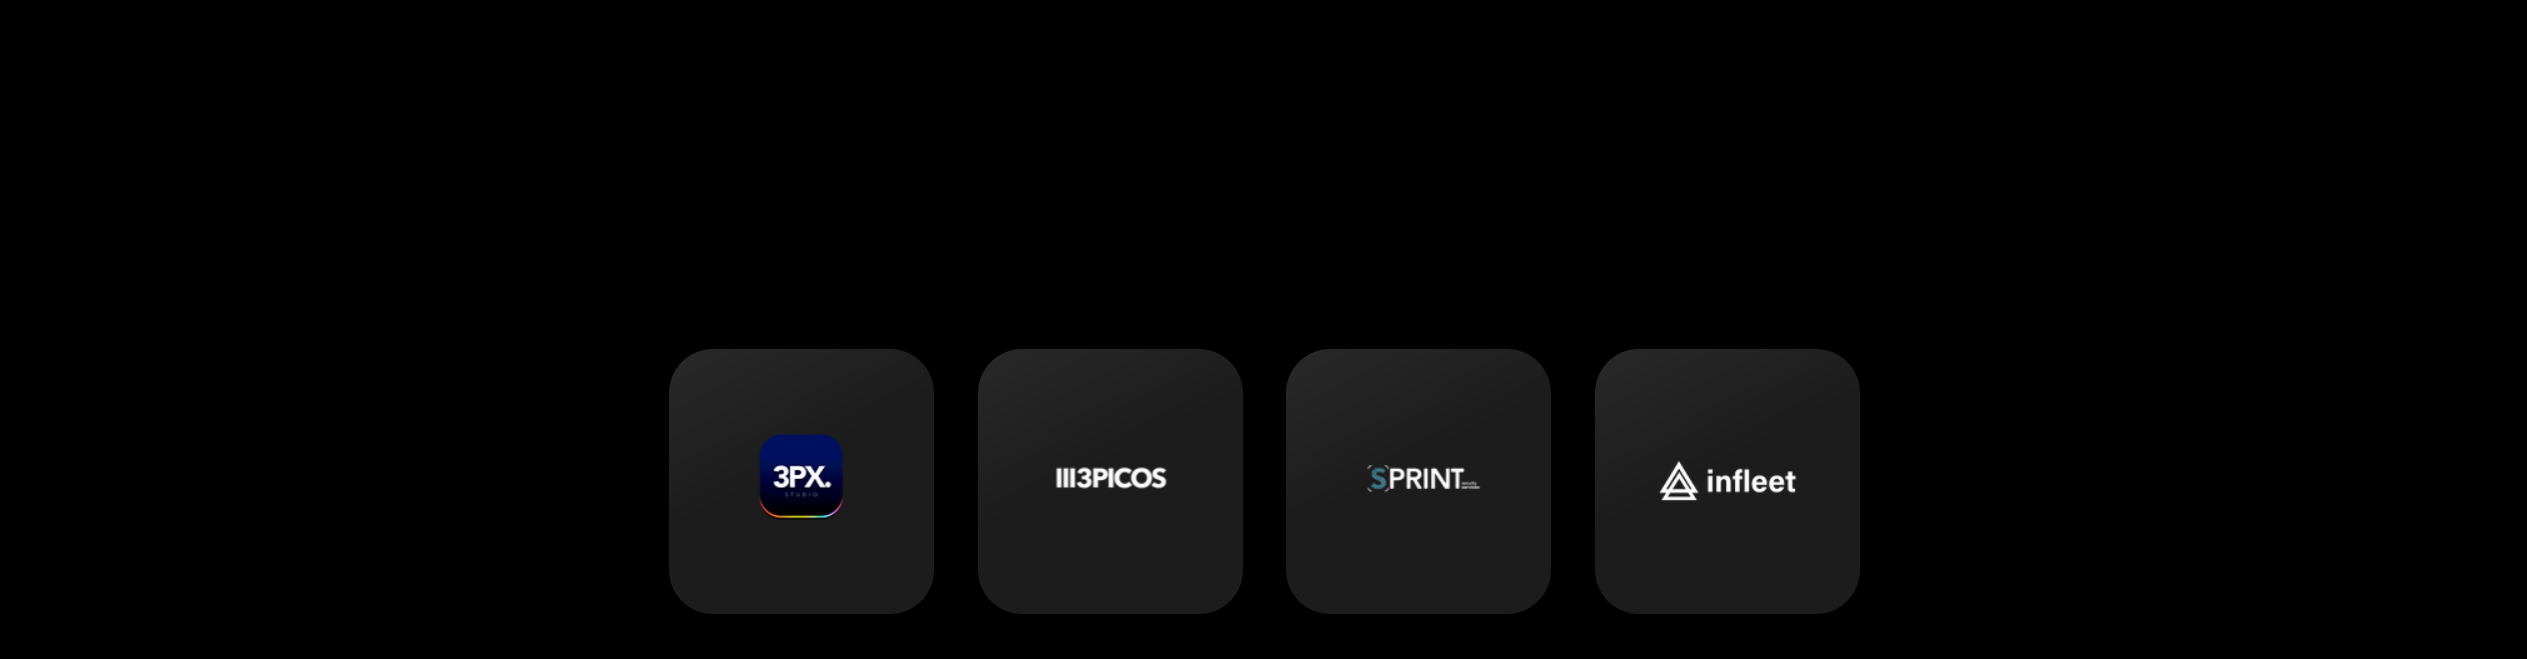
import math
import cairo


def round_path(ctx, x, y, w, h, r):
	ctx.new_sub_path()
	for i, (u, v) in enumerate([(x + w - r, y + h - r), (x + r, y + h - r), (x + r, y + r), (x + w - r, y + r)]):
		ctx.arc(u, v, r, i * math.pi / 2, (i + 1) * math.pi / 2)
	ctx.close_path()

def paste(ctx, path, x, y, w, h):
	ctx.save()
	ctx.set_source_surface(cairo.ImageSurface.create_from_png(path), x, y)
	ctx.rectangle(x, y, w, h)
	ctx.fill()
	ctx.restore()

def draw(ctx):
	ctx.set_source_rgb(0, 0, 0)
	ctx.paint()
	gradient = cairo.LinearGradient(717, 323, 885, 639)
	gradient.add_color_stop_rgba(0, 0.161, 0.161, 0.161, 1)
	gradient.add_color_stop_rgba(0.45, 0.11, 0.11, 0.11, 1)
	gradient.add_color_stop_rgba(1, 0.11, 0.11, 0.11, 1)
	ctx.set_source(gradient)
	round_path(ctx, 669, 349, 265, 265, 44)
	ctx.fill()
	paste(ctx, 'media/1.png', 758, 433, 86, 87)
	gradient = cairo.LinearGradient(1026, 323, 1194, 639)
	gradient.add_color_stop_rgba(0, 0.161, 0.161, 0.161, 1)
	gradient.add_color_stop_rgba(0.45, 0.11, 0.11, 0.11, 1)
	gradient.add_color_stop_rgba(1, 0.11, 0.11, 0.11, 1)
	ctx.set_source(gradient)
	round_path(ctx, 978, 349, 265, 265, 44)
	ctx.fill()
	paste(ctx, 'media/2.png', 1055, 467, 112, 22)
	gradient = cairo.LinearGradient(1335, 323, 1503, 639)
	gradient.add_color_stop_rgba(0, 0.161, 0.161, 0.161, 1)
	gradient.add_color_stop_rgba(0.45, 0.11, 0.11, 0.11, 1)
	gradient.add_color_stop_rgba(1, 0.11, 0.11, 0.11, 1)
	ctx.set_source(gradient)
	round_path(ctx, 1286, 349, 265, 265, 44)
	ctx.fill()
	paste(ctx, 'media/3.png', 1367, 464, 114, 29)
	gradient = cairo.LinearGradient(1643, 323, 1812, 639)
	gradient.add_color_stop_rgba(0, 0.161, 0.161, 0.161, 1)
	gradient.add_color_stop_rgba(0.45, 0.11, 0.11, 0.11, 1)
	gradient.add_color_stop_rgba(1, 0.11, 0.11, 0.11, 1)
	ctx.set_source(gradient)
	round_path(ctx, 1595, 349, 265, 265, 44)
	ctx.fill()
	paste(ctx, 'media/4.png', 1658, 461, 139, 41)


surface = cairo.ImageSurface(cairo.FORMAT_RGB24, 2527, 659)
ctx = cairo.Context(surface)
options = cairo.FontOptions()
options.set_hint_metrics(cairo.HINT_METRICS_OFF)
options.set_hint_style(cairo.HINT_STYLE_NONE)
ctx.set_font_options(options)
ctx.set_miter_limit(4)
draw(ctx)
surface.write_to_png('image.png')
